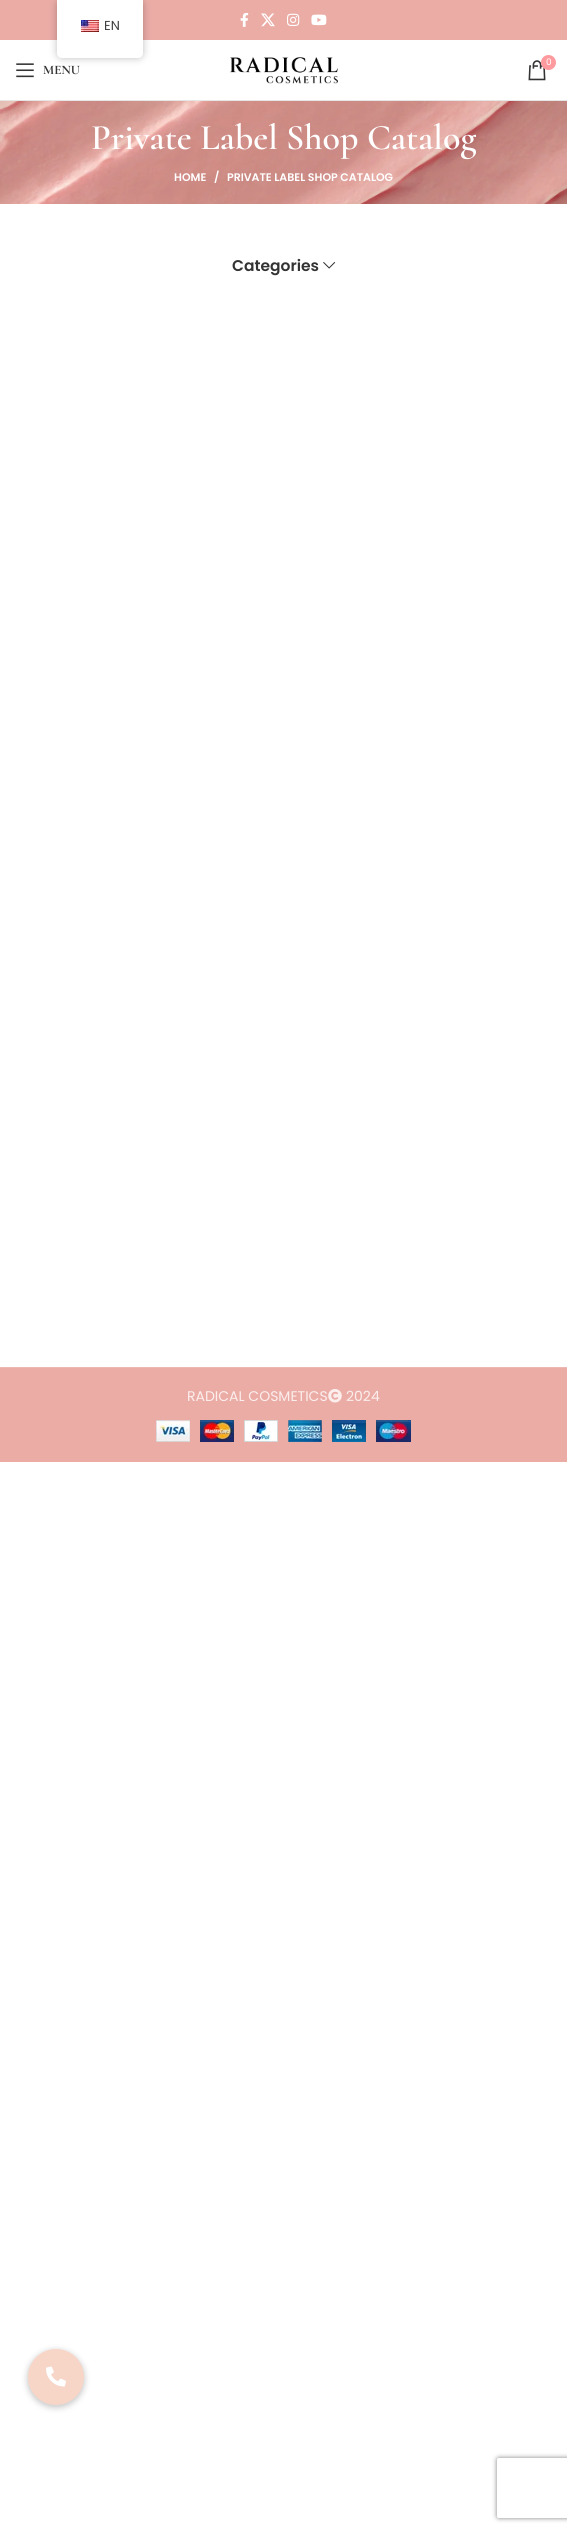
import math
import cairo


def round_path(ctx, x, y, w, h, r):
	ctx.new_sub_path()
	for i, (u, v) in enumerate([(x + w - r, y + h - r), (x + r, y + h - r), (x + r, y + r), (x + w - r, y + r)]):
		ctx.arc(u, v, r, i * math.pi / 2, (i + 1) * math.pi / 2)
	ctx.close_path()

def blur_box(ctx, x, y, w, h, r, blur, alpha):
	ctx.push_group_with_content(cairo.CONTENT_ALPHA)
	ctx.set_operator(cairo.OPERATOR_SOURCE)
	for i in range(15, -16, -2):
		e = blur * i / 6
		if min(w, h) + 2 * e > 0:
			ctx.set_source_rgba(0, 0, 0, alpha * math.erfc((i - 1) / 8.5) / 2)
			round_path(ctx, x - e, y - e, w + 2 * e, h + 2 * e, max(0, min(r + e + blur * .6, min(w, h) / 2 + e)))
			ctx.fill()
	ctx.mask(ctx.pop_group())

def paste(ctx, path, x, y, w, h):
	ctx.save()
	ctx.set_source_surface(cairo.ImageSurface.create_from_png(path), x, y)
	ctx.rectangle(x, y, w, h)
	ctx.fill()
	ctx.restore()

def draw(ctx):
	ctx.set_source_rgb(1, 1, 1)
	ctx.paint()
	ctx.set_source_rgb(0.918, 0.675, 0.651)
	ctx.rectangle(0, 0, 567, 40)
	ctx.fill()
	ctx.set_source_rgb(0, 0, 0)
	blur_box(ctx, 57, 0, 86, 58, 5, 4, 0.25)
	ctx.set_source_rgb(1, 1, 1)
	ctx.new_path()
	ctx.move_to(57, 0)
	ctx.line_to(143, 0)
	ctx.line_to(143, 53)
	ctx.curve_to(143, 56, 141, 58, 138, 58)
	ctx.line_to(62, 58)
	ctx.curve_to(59, 58, 57, 56, 57, 53)
	ctx.close_path()
	ctx.fill()
	paste(ctx, 'media/1.png', 81, 20, 18, 12)
	ctx.select_font_face('Poppins')
	ctx.set_font_size(13)
	ctx.set_source_rgb(0.251, 0.251, 0.251)
	ctx.move_to(104, 30)
	ctx.show_text('EN')
	paste(ctx, 'media/2.png', 240, 12, 9, 15)
	paste(ctx, 'media/3.png', 261, 13, 14, 14)
	paste(ctx, 'media/4.png', 287, 13, 13, 13)
	paste(ctx, 'media/5.png', 311, 14, 16, 12)
	ctx.set_source_rgb(0.902, 0.902, 0.902)
	ctx.rectangle(0, 100, 567, 1)
	ctx.fill()
	paste(ctx, 'media/6.png', 230, 57, 108, 27)
	paste(ctx, 'media/7.png', 528, 60, 18, 21)
	ctx.set_source_rgb(1, 0.604, 0.62)
	ctx.arc(548.5, 62.5, 7.5, 0, 2 * math.pi)
	ctx.fill()
	ctx.set_font_size(9)
	ctx.set_source_rgb(1, 1, 1)
	ctx.move_to(546, 65)
	ctx.show_text('0')
	paste(ctx, 'media/8.png', 16, 63, 18, 15)
	ctx.select_font_face('Cormorant', cairo.FONT_SLANT_NORMAL, cairo.FONT_WEIGHT_BOLD)
	ctx.set_font_size(13)
	ctx.set_source_rgb(0.2, 0.2, 0.2)
	ctx.move_to(43, 74)
	ctx.show_text('MENU')
	paste(ctx, 'media/9.png', 0, 101, 567, 103)
	ctx.select_font_face('Cormorant SemiBold')
	ctx.set_font_size(36)
	ctx.set_source_rgb(1, 1, 1)
	ctx.move_to(91, 149)
	ctx.show_text('Private Label Shop Catalog')
	ctx.select_font_face('Poppins SemiBold')
	ctx.set_font_size(11)
	for x, y, s in [
		(174, 181, 'HOME'),
		(214, 181, '/'),
		(227, 181, 'PRIVATE LABEL SHOP CATALOG'),
	]:
		ctx.move_to(x, y)
		ctx.show_text(s)
	ctx.set_font_size(15.5)
	ctx.set_source_rgb(0.2, 0.2, 0.2)
	ctx.move_to(232, 271)
	ctx.show_text('Categories')
	paste(ctx, 'media/10.png', 323, 262, 13, 7)
	ctx.set_source_rgb(0.918, 0.675, 0.651)
	ctx.rectangle(0, 1368, 567, 94)
	ctx.fill()
	ctx.set_source_rgb(0.929, 0.722, 0.702)
	ctx.rectangle(0, 1367, 567, 1)
	ctx.fill()
	ctx.select_font_face('Poppins')
	ctx.set_font_size(14)
	ctx.set_source_rgb(0.984, 0.933, 0.929)
	ctx.move_to(187, 1401)
	ctx.show_text('RADICAL COSMETICS')
	paste(ctx, 'media/11.png', 328, 1389, 14, 14)
	ctx.move_to(346, 1401)
	ctx.show_text('2024')
	paste(ctx, 'media/12.png', 156, 1420, 255, 22)
	ctx.set_source_rgb(0, 0, 0)
	blur_box(ctx, 27, 2350, 58, 58, 29, 3, 0.2)
	ctx.set_source_rgb(0.965, 0.839, 0.784)
	ctx.arc(56, 2377, 28, 0, 2 * math.pi)
	ctx.fill()
	paste(ctx, 'media/13.png', 46, 2366, 20, 21)
	ctx.save()
	ctx.set_fill_rule(cairo.FILL_RULE_EVEN_ODD)
	ctx.new_path()
	ctx.move_to(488, 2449)
	ctx.line_to(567, 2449)
	ctx.line_to(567, 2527)
	ctx.line_to(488, 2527)
	ctx.close_path()
	ctx.move_to(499, 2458)
	ctx.line_to(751, 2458)
	ctx.curve_to(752, 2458, 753, 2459, 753, 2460)
	ctx.line_to(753, 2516)
	ctx.curve_to(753, 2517, 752, 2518, 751, 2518)
	ctx.line_to(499, 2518)
	ctx.curve_to(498, 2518, 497, 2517, 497, 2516)
	ctx.line_to(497, 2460)
	ctx.curve_to(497, 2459, 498, 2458, 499, 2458)
	ctx.close_path()
	ctx.clip()
	ctx.set_source_rgb(0.502, 0.502, 0.502)
	blur_box(ctx, 497, 2458, 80, 60, 2, 2.5, 1)
	ctx.restore()


surface = cairo.ImageSurface(cairo.FORMAT_RGB24, 567, 2532)
ctx = cairo.Context(surface)
options = cairo.FontOptions()
options.set_hint_metrics(cairo.HINT_METRICS_OFF)
options.set_hint_style(cairo.HINT_STYLE_NONE)
ctx.set_font_options(options)
ctx.set_miter_limit(4)
draw(ctx)
surface.write_to_png('image.png')
